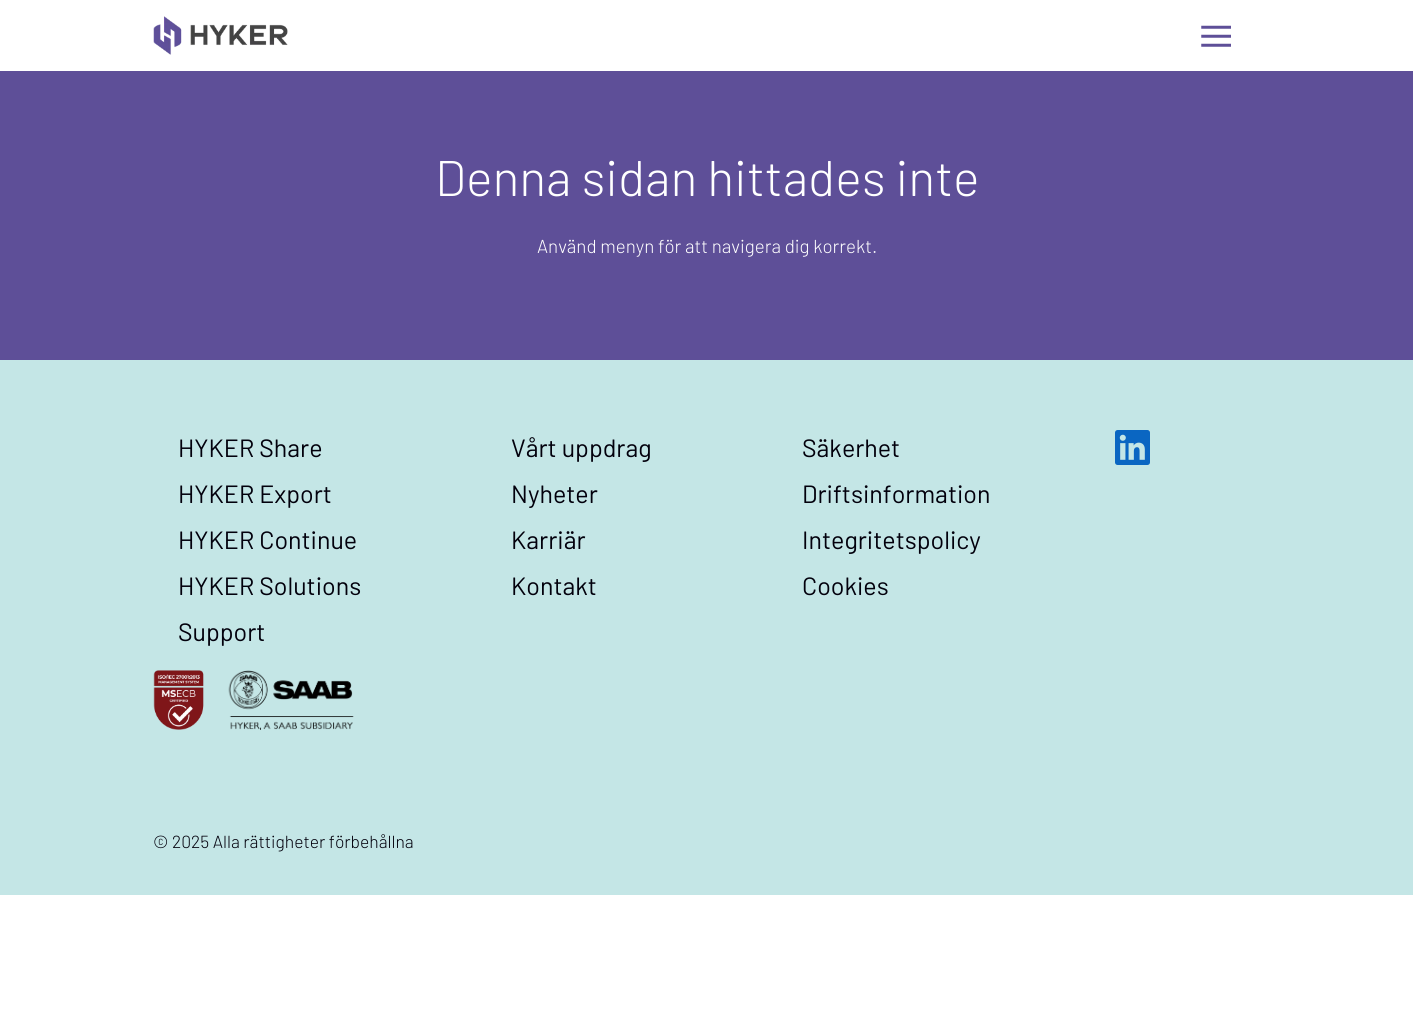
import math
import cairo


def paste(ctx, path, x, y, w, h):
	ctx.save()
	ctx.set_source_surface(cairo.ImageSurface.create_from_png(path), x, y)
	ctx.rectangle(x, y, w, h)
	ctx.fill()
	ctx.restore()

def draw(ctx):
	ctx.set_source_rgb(1, 1, 1)
	ctx.paint()
	paste(ctx, 'media/1.png', 153, 16, 135, 39)
	paste(ctx, 'media/2.png', 1201, 25, 30, 22)
	ctx.set_source_rgb(0.369, 0.31, 0.596)
	ctx.rectangle(0, 71, 1413, 289)
	ctx.fill()
	ctx.select_font_face('Barlow Light')
	ctx.set_font_size(50)
	ctx.set_source_rgb(1, 1, 1)
	ctx.move_to(435, 196)
	ctx.show_text('Denna sidan hittades inte')
	ctx.set_font_size(18.75)
	ctx.move_to(537, 253)
	ctx.show_text('Använd menyn för att navigera dig korrekt.')
	ctx.set_source_rgb(0.769, 0.902, 0.902)
	ctx.rectangle(0, 360, 1413, 535)
	ctx.fill()
	ctx.select_font_face('Barlow')
	ctx.set_font_size(25)
	ctx.set_source_rgb(0.008, 0, 0.047)
	for x, y, s in [
		(178, 457, 'HYKER Share'),
		(178, 503, 'HYKER Export'),
		(178, 549, 'HYKER Continue'),
		(178, 595, 'HYKER Solutions'),
		(178, 641, 'Support'),
		(511, 457, 'Vårt uppdrag'),
		(511, 503, 'Nyheter'),
		(511, 549, 'Karriär'),
		(511, 595, 'Kontakt'),
		(802, 457, 'Säkerhet'),
		(802, 503, 'Driftsinformation'),
		(802, 549, 'Integritetspolicy'),
		(802, 595, 'Cookies'),
	]:
		ctx.move_to(x, y)
		ctx.show_text(s)
	paste(ctx, 'media/3.png', 1115, 430, 35, 35)
	paste(ctx, 'media/4.png', 153, 670, 51, 60)
	paste(ctx, 'media/5.png', 228, 670, 126, 60)
	ctx.select_font_face('Barlow Light')
	ctx.set_font_size(17.5)
	ctx.move_to(153, 848)
	ctx.show_text('© 2025 Alla rättigheter förbehållna')


surface = cairo.ImageSurface(cairo.FORMAT_RGB24, 1413, 1030)
ctx = cairo.Context(surface)
options = cairo.FontOptions()
options.set_hint_metrics(cairo.HINT_METRICS_OFF)
options.set_hint_style(cairo.HINT_STYLE_NONE)
ctx.set_font_options(options)
ctx.set_miter_limit(4)
draw(ctx)
surface.write_to_png('image.png')
